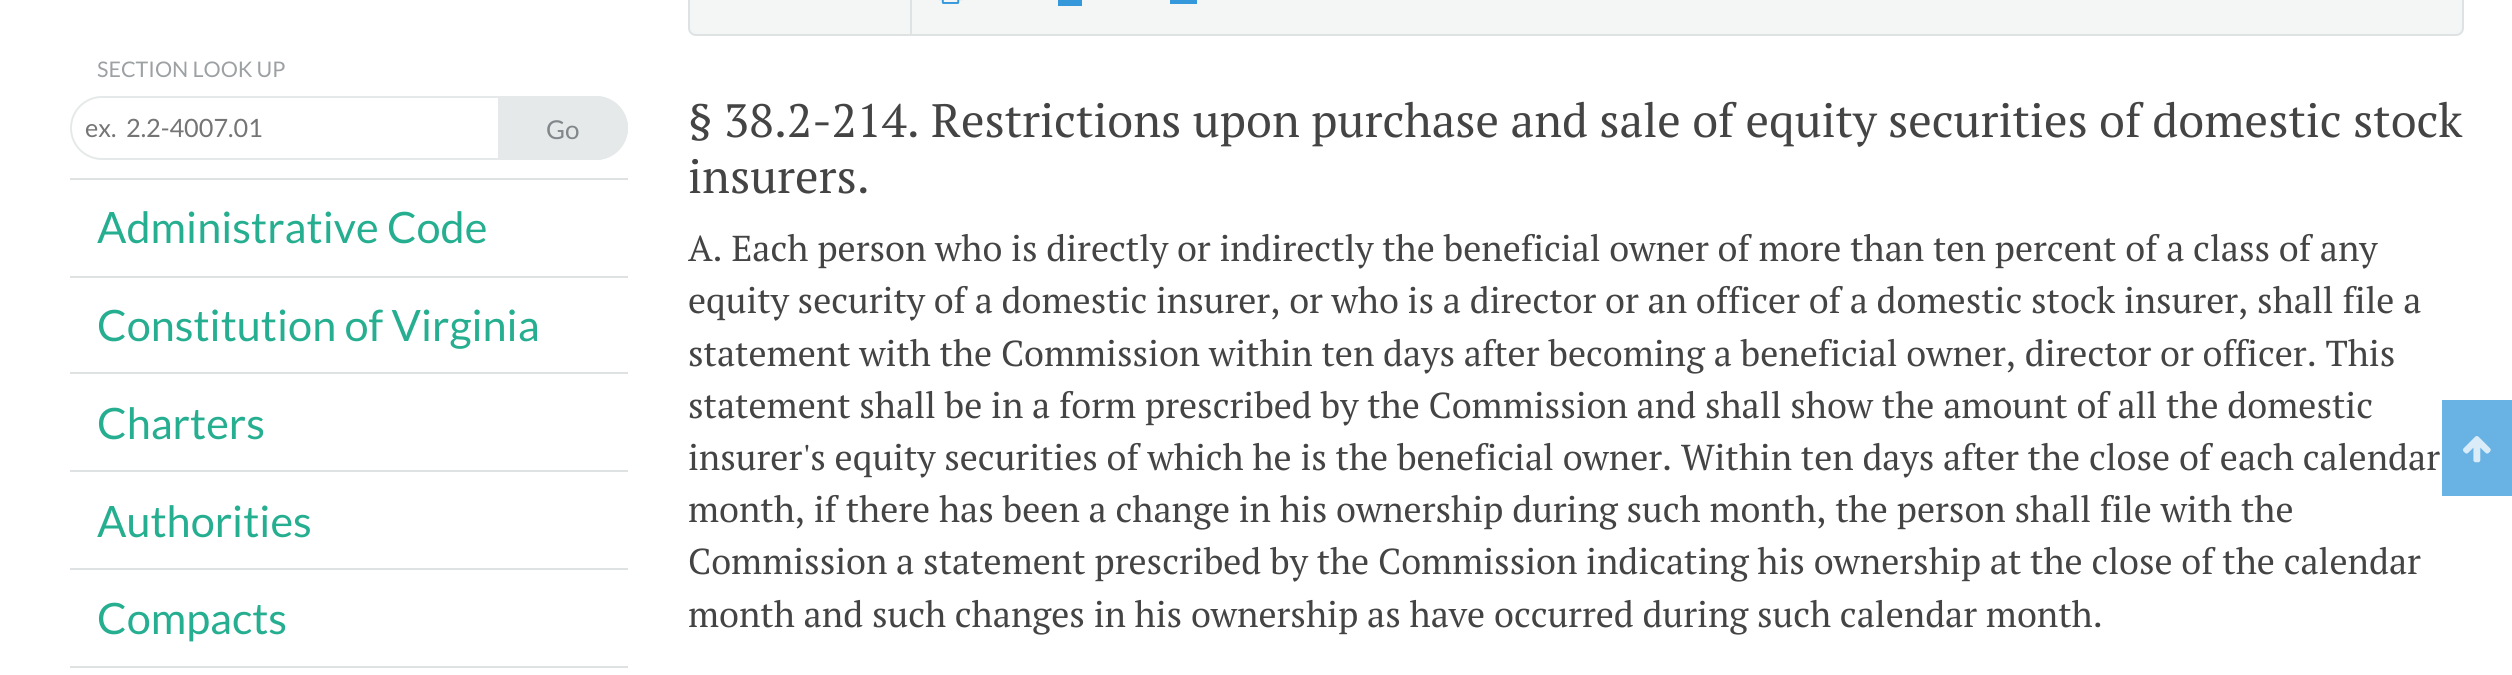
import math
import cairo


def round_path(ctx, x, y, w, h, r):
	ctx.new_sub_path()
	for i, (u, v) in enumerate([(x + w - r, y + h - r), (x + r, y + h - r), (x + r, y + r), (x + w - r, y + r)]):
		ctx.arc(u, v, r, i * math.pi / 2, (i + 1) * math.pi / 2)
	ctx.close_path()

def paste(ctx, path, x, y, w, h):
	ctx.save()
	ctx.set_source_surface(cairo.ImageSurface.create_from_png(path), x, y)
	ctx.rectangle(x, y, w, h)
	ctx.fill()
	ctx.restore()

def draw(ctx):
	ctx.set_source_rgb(1, 1, 1)
	ctx.paint()
	ctx.select_font_face('Lato')
	ctx.set_font_size(21.5)
	ctx.set_source_rgb(0.616, 0.631, 0.639)
	ctx.move_to(97, 77)
	ctx.show_text('SECTION LOOK UP')
	round_path(ctx, 71, 97, 556, 62, 31)
	ctx.set_source_rgb(0.898, 0.914, 0.914)
	ctx.stroke()
	ctx.set_font_size(25.25)
	ctx.set_source_rgb(0.459, 0.459, 0.459)
	ctx.move_to(85, 137)
	ctx.show_text('ex.  2.2-4007.01')
	ctx.set_source_rgb(0.898, 0.914, 0.914)
	ctx.new_path()
	ctx.move_to(498, 96)
	ctx.line_to(596, 96)
	ctx.curve_to(613.5, 96, 628, 110.5, 628, 128)
	ctx.curve_to(628, 145.5, 613.5, 160, 596, 160)
	ctx.line_to(498, 160)
	ctx.close_path()
	ctx.fill()
	ctx.set_font_size(26)
	ctx.set_source_rgb(0.51, 0.529, 0.545)
	ctx.move_to(546, 139)
	ctx.show_text('Go')
	ctx.set_source_rgb(0.871, 0.886, 0.89)
	ctx.rectangle(70, 178, 558, 2)
	ctx.fill()
	ctx.set_font_size(43.25)
	ctx.set_source_rgb(0.149, 0.682, 0.565)
	ctx.move_to(97, 243)
	ctx.show_text('Administrative Code')
	ctx.set_source_rgb(0.871, 0.886, 0.89)
	ctx.rectangle(70, 276, 558, 2)
	ctx.fill()
	ctx.set_source_rgb(0.149, 0.682, 0.565)
	ctx.move_to(97, 341)
	ctx.show_text('Constitution of Virginia')
	ctx.set_source_rgb(0.871, 0.886, 0.89)
	ctx.rectangle(70, 372, 558, 2)
	ctx.fill()
	ctx.set_source_rgb(0.149, 0.682, 0.565)
	ctx.move_to(97, 439)
	ctx.show_text('Charters')
	ctx.set_source_rgb(0.871, 0.886, 0.89)
	ctx.rectangle(70, 470, 558, 2)
	ctx.fill()
	ctx.set_source_rgb(0.149, 0.682, 0.565)
	ctx.move_to(97, 537)
	ctx.show_text('Authorities')
	ctx.set_source_rgb(0.871, 0.886, 0.89)
	ctx.rectangle(70, 568, 558, 2)
	ctx.fill()
	ctx.set_source_rgb(0.149, 0.682, 0.565)
	ctx.move_to(97, 634)
	ctx.show_text('Compacts')
	ctx.set_source_rgb(0.871, 0.886, 0.89)
	ctx.rectangle(70, 666, 558, 2)
	ctx.fill()
	ctx.set_source_rgb(0.957, 0.961, 0.961)
	round_path(ctx, 689, -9, 1774, 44, 7)
	ctx.fill_preserve()
	ctx.set_source_rgb(0.871, 0.886, 0.89)
	ctx.stroke()
	ctx.rectangle(910, 0, 2, 34)
	ctx.fill()
	paste(ctx, 'media/1.png', 938, 0, 25, 4)
	ctx.set_source_rgb(0.204, 0.596, 0.859)
	ctx.rectangle(1058, 0, 24, 6)
	ctx.rectangle(1170, 0, 27, 4)
	ctx.fill()
	ctx.set_source_rgb(0.408, 0.698, 0.894)
	ctx.rectangle(2442, 400, 70, 96)
	ctx.fill()
	paste(ctx, 'media/2.png', 2463, 436, 28, 27)
	ctx.select_font_face('PT Serif')
	ctx.set_font_size(46.8)
	ctx.set_source_rgb(0.267, 0.267, 0.267)
	ctx.move_to(688, 137)
	ctx.show_text('§ 38.2-214. Restrictions upon purchase and sale of equity securities of domestic stock')
	ctx.move_to(688, 193)
	ctx.show_text('insurers.')
	ctx.set_font_size(36)
	for x, y, s in [
		(688, 261, 'A. Each person who is directly or indirectly the beneficial owner of more than ten percent of a class of any'),
		(688, 313, 'equity security of a domestic insurer, or who is a director or an officer of a domestic stock insurer, shall file a'),
		(688, 366, 'statement with the Commission within ten days after becoming a beneficial owner, director or officer. This'),
		(688, 418, 'statement shall be in a form prescribed by the Commission and shall show the amount of all the domestic'),
		(688, 470, 'insurer\'s equity securities of which he is the beneficial owner. Within ten days after the close of each calendar'),
		(688, 522, 'month, if there has been a change in his ownership during such month, the person shall file with the'),
		(688, 574, 'Commission a statement prescribed by the Commission indicating his ownership at the close of the calendar'),
		(688, 627, 'month and such changes in his ownership as have occurred during such calendar month.'),
	]:
		ctx.move_to(x, y)
		ctx.show_text(s)


surface = cairo.ImageSurface(cairo.FORMAT_RGB24, 2512, 675)
ctx = cairo.Context(surface)
options = cairo.FontOptions()
options.set_hint_metrics(cairo.HINT_METRICS_OFF)
options.set_hint_style(cairo.HINT_STYLE_NONE)
ctx.set_font_options(options)
ctx.set_miter_limit(4)
draw(ctx)
surface.write_to_png('image.png')
